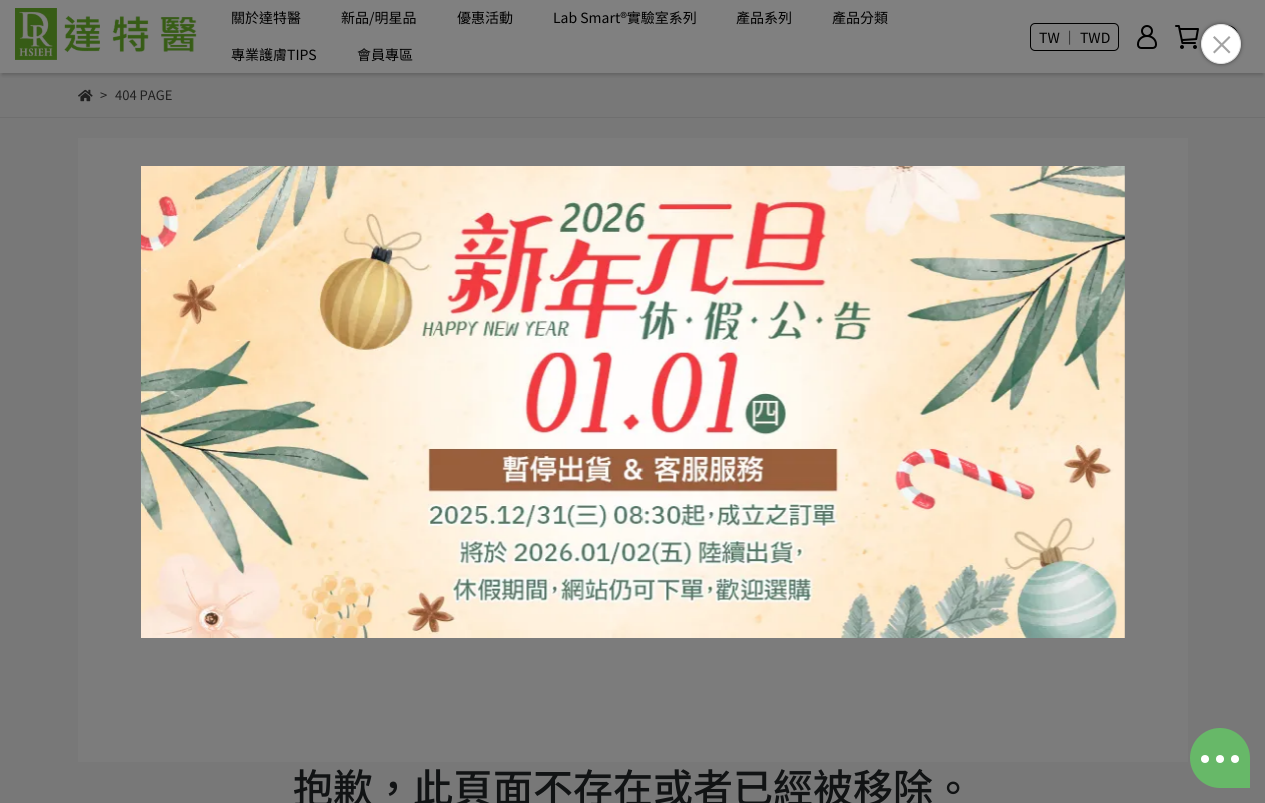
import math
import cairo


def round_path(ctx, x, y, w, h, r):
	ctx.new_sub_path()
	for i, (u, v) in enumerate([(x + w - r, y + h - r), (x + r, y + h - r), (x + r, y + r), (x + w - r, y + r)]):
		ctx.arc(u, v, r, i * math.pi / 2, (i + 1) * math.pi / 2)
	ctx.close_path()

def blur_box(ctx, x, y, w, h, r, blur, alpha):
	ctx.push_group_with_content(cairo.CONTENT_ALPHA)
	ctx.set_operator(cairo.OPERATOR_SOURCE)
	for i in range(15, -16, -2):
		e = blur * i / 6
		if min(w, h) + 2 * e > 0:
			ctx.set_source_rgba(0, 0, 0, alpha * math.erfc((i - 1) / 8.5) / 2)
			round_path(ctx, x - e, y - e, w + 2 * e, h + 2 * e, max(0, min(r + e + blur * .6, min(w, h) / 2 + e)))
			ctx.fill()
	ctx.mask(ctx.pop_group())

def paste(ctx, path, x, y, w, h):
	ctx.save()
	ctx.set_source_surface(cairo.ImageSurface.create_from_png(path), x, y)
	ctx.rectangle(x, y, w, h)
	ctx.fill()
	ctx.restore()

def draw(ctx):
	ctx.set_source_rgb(0.502, 0.502, 0.502)
	ctx.paint()
	ctx.set_source_rgb(0.471, 0.471, 0.471)
	ctx.rectangle(0, 73, 1265, 730)
	ctx.fill()
	ctx.save()
	ctx.rectangle(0, 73, 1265, 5)
	ctx.clip()
	ctx.set_source_rgb(0, 0, 0)
	blur_box(ctx, 2, 6, 1261, 69, 0, 2, 0.2)
	ctx.restore()
	paste(ctx, 'media/1.png', 15, 8, 182, 52)
	ctx.select_font_face('Noto Sans TC')
	ctx.set_font_size(14)
	ctx.set_source_rgb(0, 0, 0)
	for x, y, s in [
		(231, 23, '關於達特醫'),
		(341, 23, '新品/明星品'),
		(457, 23, '優惠活動'),
		(553, 23, 'Lab Smart®實驗室系列'),
		(736, 23, '產品系列'),
		(832, 23, '產品分類'),
		(231, 60, '專業護膚TIPS'),
		(357, 60, '會員專區'),
	]:
		ctx.move_to(x, y)
		ctx.show_text(s)
	round_path(ctx, 1030.5, 23.5, 88, 27, 4.5)
	ctx.set_line_width(1)
	ctx.stroke()
	ctx.move_to(1039, 43)
	ctx.show_text('TW ｜ TWD')
	paste(ctx, 'media/2.png', 1137, 25, 20, 24)
	paste(ctx, 'media/3.png', 1175, 25, 24, 24)
	ctx.new_path()
	ctx.move_to(1237, 36)
	ctx.curve_to(1237, 49, 1217, 49, 1217, 36)
	ctx.curve_to(1217, 23, 1237, 23, 1237, 36)
	ctx.close_path()
	ctx.set_line_width(2)
	ctx.set_line_cap(cairo.LINE_CAP_ROUND)
	ctx.set_line_join(cairo.LINE_JOIN_ROUND)
	ctx.stroke()
	ctx.set_source_rgb(0, 0, 0)
	blur_box(ctx, 1201, 24, 40, 40, 20, 2, 0.5)
	ctx.set_source_rgb(1, 1, 1)
	ctx.arc(1221, 44, 19.5, 0, 2 * math.pi)
	ctx.fill_preserve()
	ctx.set_source_rgb(0.886, 0.886, 0.886)
	ctx.set_line_width(1)
	ctx.set_line_cap(cairo.LINE_CAP_BUTT)
	ctx.set_line_join(cairo.LINE_JOIN_MITER)
	ctx.stroke()
	ctx.set_source_rgb(0.639, 0.639, 0.639)
	ctx.new_path()
	ctx.move_to(1214.5, 36)
	ctx.line_to(1230.5, 52)
	ctx.line_to(1229, 53.5)
	ctx.line_to(1213, 37.5)
	ctx.close_path()
	ctx.fill()
	ctx.new_path()
	ctx.move_to(1213, 52)
	ctx.line_to(1229, 36)
	ctx.line_to(1230.5, 37.5)
	ctx.line_to(1214.5, 53.5)
	ctx.close_path()
	ctx.fill()
	paste(ctx, 'media/6.png', 78, 138, 1110, 624)
	paste(ctx, 'media/4.png', 141, 166, 984, 472)
	ctx.set_source_rgb(0.435, 0.435, 0.435)
	ctx.rectangle(0, 117, 1265, 1)
	ctx.fill()
	paste(ctx, 'media/5.png', 78, 89, 15, 13)
	ctx.set_font_size(13)
	ctx.set_source_rgb(0.125, 0.125, 0.125)
	ctx.move_to(100, 100)
	ctx.show_text('>')
	ctx.move_to(115, 100)
	ctx.show_text('404 PAGE')
	ctx.select_font_face('Noto Sans TC Medium')
	ctx.set_font_size(40)
	ctx.set_source_rgb(0.067, 0.075, 0.082)
	ctx.move_to(293, 803)
	ctx.show_text('抱歉，此頁面不存在或者已經被移除。')
	ctx.set_source_rgb(0.404, 0.722, 0.408)
	ctx.new_path()
	ctx.move_to(1220, 728)
	ctx.curve_to(1236.5, 728, 1250, 741.5, 1250, 758)
	ctx.line_to(1250, 788)
	ctx.line_to(1220, 788)
	ctx.curve_to(1203.5, 788, 1190, 774.5, 1190, 758)
	ctx.curve_to(1190, 741.5, 1203.5, 728, 1220, 728)
	ctx.close_path()
	ctx.fill()
	ctx.set_source_rgb(1, 1, 1)
	ctx.arc(1205, 759, 4, 0, 2 * math.pi)
	ctx.fill()
	ctx.arc(1220, 759, 4, 0, 2 * math.pi)
	ctx.fill()
	ctx.arc(1235, 759, 4, 0, 2 * math.pi)
	ctx.fill()


surface = cairo.ImageSurface(cairo.FORMAT_RGB24, 1265, 803)
ctx = cairo.Context(surface)
options = cairo.FontOptions()
options.set_hint_metrics(cairo.HINT_METRICS_OFF)
options.set_hint_style(cairo.HINT_STYLE_NONE)
ctx.set_font_options(options)
ctx.set_miter_limit(4)
draw(ctx)
surface.write_to_png('image.png')
